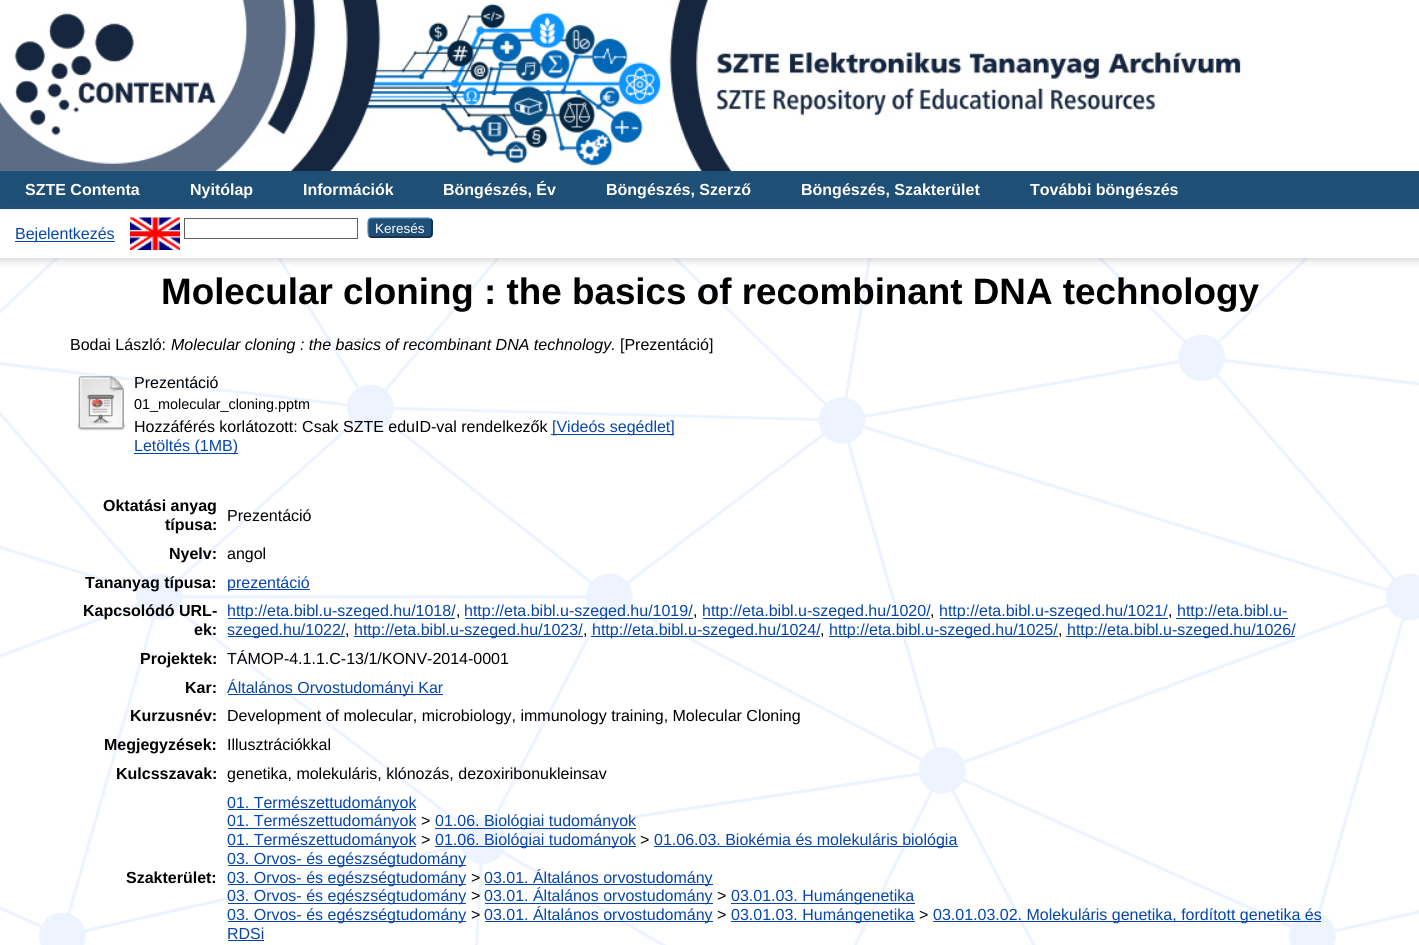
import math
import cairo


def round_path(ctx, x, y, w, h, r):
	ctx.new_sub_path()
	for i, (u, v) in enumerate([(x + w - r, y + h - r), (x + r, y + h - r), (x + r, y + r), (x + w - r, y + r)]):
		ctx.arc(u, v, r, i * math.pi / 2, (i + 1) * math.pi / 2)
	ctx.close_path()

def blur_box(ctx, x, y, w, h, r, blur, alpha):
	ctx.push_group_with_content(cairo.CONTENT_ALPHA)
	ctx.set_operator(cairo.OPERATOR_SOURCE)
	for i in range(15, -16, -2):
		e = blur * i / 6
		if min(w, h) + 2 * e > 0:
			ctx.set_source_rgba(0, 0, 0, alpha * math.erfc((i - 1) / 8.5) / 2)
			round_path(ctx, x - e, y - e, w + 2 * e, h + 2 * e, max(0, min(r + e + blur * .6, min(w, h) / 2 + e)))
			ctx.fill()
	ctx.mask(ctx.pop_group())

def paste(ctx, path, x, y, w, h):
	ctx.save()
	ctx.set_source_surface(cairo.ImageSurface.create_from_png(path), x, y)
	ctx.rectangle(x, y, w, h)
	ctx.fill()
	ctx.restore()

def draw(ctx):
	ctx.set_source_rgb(1, 1, 1)
	ctx.paint()
	paste(ctx, 'media/1.png', 0, 258, 1419, 687)
	paste(ctx, 'media/2.png', 0, 0, 1241, 171)
	ctx.set_source_rgb(0.125, 0.31, 0.463)
	ctx.rectangle(0, 171, 1419, 38)
	ctx.fill()
	ctx.select_font_face('Liberation Sans', cairo.FONT_SLANT_NORMAL, cairo.FONT_WEIGHT_BOLD)
	ctx.set_font_size(16)
	ctx.set_source_rgb(1, 1, 1)
	for x, y, s in [
		(25, 195, 'SZTE Contenta'),
		(190, 195, 'Nyitólap'),
		(303, 195, 'Információk'),
		(443, 195, 'Böngészés, Év'),
		(606, 195, 'Böngészés, Szerző'),
		(801, 195, 'Böngészés, Szakterület'),
		(1030, 195, 'További böngészés'),
	]:
		ctx.move_to(x, y)
		ctx.show_text(s)
	ctx.set_source_rgb(0.392, 0.392, 0.392)
	blur_box(ctx, 0, 213, 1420, 47, 0, 4, 0.3)
	ctx.set_source_rgb(1, 1, 1)
	ctx.rectangle(0, 210, 1419, 48)
	ctx.fill()
	ctx.set_source_rgb(0.024, 0.271, 0.678)
	ctx.rectangle(15, 241, 100, 1)
	ctx.fill()
	ctx.select_font_face('Liberation Sans')
	ctx.move_to(15, 239)
	ctx.show_text('Bejelentkezés')
	paste(ctx, 'media/3.png', 130, 217, 50, 33)
	ctx.rectangle(184.5, 218.5, 173, 20)
	ctx.set_source_rgb(0.376, 0.376, 0.376)
	ctx.set_line_width(1)
	ctx.stroke()
	ctx.set_source_rgb(0.122, 0.31, 0.463)
	round_path(ctx, 368, 218, 65, 20, 4)
	ctx.fill()
	ctx.new_path()
	ctx.move_to(369, 219)
	ctx.line_to(371, 218)
	ctx.line_to(429, 218)
	ctx.line_to(431, 219)
	ctx.set_source_rgb(0.357, 0.592, 0.78)
	ctx.set_line_width(1.2)
	ctx.stroke()
	ctx.new_path()
	ctx.move_to(431, 219)
	ctx.curve_to(433, 221, 432, 225, 432, 227.5)
	ctx.curve_to(432, 239, 432, 237, 419, 237)
	ctx.line_to(381, 237)
	ctx.curve_to(380, 237, 371.5, 238.5, 369, 236)
	ctx.set_source_rgb(0.051, 0.129, 0.192)
	ctx.stroke()
	ctx.new_path()
	ctx.move_to(369, 236)
	ctx.curve_to(367.5, 234, 368, 229.5, 368, 227.5)
	ctx.curve_to(368, 225.5, 367.5, 221, 369, 219)
	ctx.set_source_rgb(0.322, 0.529, 0.702)
	ctx.stroke()
	ctx.set_font_size(13.5)
	ctx.set_source_rgb(1, 1, 1)
	ctx.move_to(375, 233)
	ctx.show_text('Keresés')
	ctx.select_font_face('Liberation Sans', cairo.FONT_SLANT_NORMAL, cairo.FONT_WEIGHT_BOLD)
	ctx.set_font_size(36.8)
	ctx.set_source_rgb(0, 0, 0)
	ctx.move_to(161, 304)
	ctx.show_text('Molecular cloning : the basics of recombinant DNA technology')
	ctx.select_font_face('Liberation Sans')
	ctx.set_font_size(16)
	ctx.move_to(70, 350)
	ctx.show_text('Bodai László:')
	ctx.select_font_face('Liberation Sans', cairo.FONT_SLANT_ITALIC)
	ctx.move_to(171, 350)
	ctx.show_text('Molecular cloning : the basics of recombinant DNA technology.')
	ctx.select_font_face('Liberation Sans')
	ctx.move_to(620, 350)
	ctx.show_text('[Prezentáció]')
	paste(ctx, 'media/4.png', 76, 376, 50, 55)
	ctx.move_to(134, 388)
	ctx.show_text('Prezentáció')
	ctx.set_font_size(14.4)
	ctx.move_to(134, 409)
	ctx.show_text('01_molecular_cloning.pptm')
	ctx.set_font_size(16)
	ctx.move_to(134, 432)
	ctx.show_text('Hozzáférés korlátozott: Csak SZTE eduID-val rendelkezők')
	ctx.set_source_rgb(0.024, 0.271, 0.678)
	ctx.rectangle(551, 434, 123, 1)
	ctx.fill()
	ctx.move_to(552, 432)
	ctx.show_text('[Videós segédlet]')
	ctx.rectangle(134, 453, 104, 1)
	ctx.fill()
	ctx.move_to(134, 451)
	ctx.show_text('Letöltés (1MB)')
	ctx.select_font_face('Liberation Sans', cairo.FONT_SLANT_NORMAL, cairo.FONT_WEIGHT_BOLD)
	ctx.set_source_rgb(0, 0, 0)
	ctx.move_to(103, 511)
	ctx.show_text('Oktatási anyag')
	ctx.move_to(165, 530)
	ctx.show_text('típusa:')
	ctx.select_font_face('Liberation Sans')
	ctx.move_to(227, 521)
	ctx.show_text('Prezentáció')
	ctx.select_font_face('Liberation Sans', cairo.FONT_SLANT_NORMAL, cairo.FONT_WEIGHT_BOLD)
	ctx.move_to(169, 559)
	ctx.show_text('Nyelv:')
	ctx.select_font_face('Liberation Sans')
	ctx.move_to(227, 559)
	ctx.show_text('angol')
	ctx.select_font_face('Liberation Sans', cairo.FONT_SLANT_NORMAL, cairo.FONT_WEIGHT_BOLD)
	ctx.move_to(85, 588)
	ctx.show_text('Tananyag típusa:')
	ctx.set_source_rgb(0.024, 0.271, 0.678)
	ctx.rectangle(228, 589, 82, 1)
	ctx.fill()
	ctx.select_font_face('Liberation Sans')
	ctx.move_to(227, 588)
	ctx.show_text('prezentáció')
	ctx.select_font_face('Liberation Sans', cairo.FONT_SLANT_NORMAL, cairo.FONT_WEIGHT_BOLD)
	ctx.set_source_rgb(0, 0, 0)
	ctx.move_to(83, 616)
	ctx.show_text('Kapcsolódó URL-')
	ctx.move_to(194, 635)
	ctx.show_text('ek:')
	ctx.set_source_rgb(0.024, 0.271, 0.678)
	ctx.rectangle(228, 618, 227, 1)
	ctx.fill()
	ctx.select_font_face('Liberation Sans')
	ctx.move_to(227, 616)
	ctx.show_text('http://eta.bibl.u-szeged.hu/1018/')
	ctx.set_source_rgb(0, 0, 0)
	ctx.move_to(456, 616)
	ctx.show_text(',')
	ctx.set_source_rgb(0.024, 0.271, 0.678)
	ctx.rectangle(465, 618, 228, 1)
	ctx.fill()
	ctx.move_to(464, 616)
	ctx.show_text('http://eta.bibl.u-szeged.hu/1019/')
	ctx.set_source_rgb(0, 0, 0)
	ctx.move_to(693, 616)
	ctx.show_text(',')
	ctx.set_source_rgb(0.024, 0.271, 0.678)
	ctx.rectangle(703, 618, 227, 1)
	ctx.fill()
	ctx.move_to(702, 616)
	ctx.show_text('http://eta.bibl.u-szeged.hu/1020/')
	ctx.set_source_rgb(0, 0, 0)
	ctx.move_to(930, 616)
	ctx.show_text(',')
	ctx.set_source_rgb(0.024, 0.271, 0.678)
	ctx.rectangle(940, 618, 228, 1)
	ctx.fill()
	ctx.move_to(939, 616)
	ctx.show_text('http://eta.bibl.u-szeged.hu/1021/')
	ctx.set_source_rgb(0, 0, 0)
	ctx.move_to(1168, 616)
	ctx.show_text(',')
	ctx.set_source_rgb(0.024, 0.271, 0.678)
	ctx.rectangle(1176, 618, 112, 1)
	ctx.fill()
	ctx.move_to(1177, 616)
	ctx.show_text('http://eta.bibl.u-')
	ctx.rectangle(228, 636, 117, 1)
	ctx.fill()
	ctx.move_to(227, 635)
	ctx.show_text('szeged.hu/1022/')
	ctx.set_source_rgb(0, 0, 0)
	ctx.move_to(345, 635)
	ctx.show_text(',')
	ctx.set_source_rgb(0.024, 0.271, 0.678)
	ctx.rectangle(354, 636, 229, 1)
	ctx.fill()
	ctx.move_to(354, 635)
	ctx.show_text('http://eta.bibl.u-szeged.hu/1023/')
	ctx.set_source_rgb(0, 0, 0)
	ctx.move_to(583, 635)
	ctx.show_text(',')
	ctx.set_source_rgb(0.024, 0.271, 0.678)
	ctx.rectangle(591, 636, 229, 1)
	ctx.fill()
	ctx.move_to(592, 635)
	ctx.show_text('http://eta.bibl.u-szeged.hu/1024/')
	ctx.set_source_rgb(0, 0, 0)
	ctx.move_to(820, 635)
	ctx.show_text(',')
	ctx.set_source_rgb(0.024, 0.271, 0.678)
	ctx.rectangle(829, 636, 229, 1)
	ctx.fill()
	ctx.move_to(829, 635)
	ctx.show_text('http://eta.bibl.u-szeged.hu/1025/')
	ctx.set_source_rgb(0, 0, 0)
	ctx.move_to(1058, 635)
	ctx.show_text(',')
	ctx.set_source_rgb(0.024, 0.271, 0.678)
	ctx.rectangle(1066, 636, 229, 1)
	ctx.fill()
	ctx.move_to(1067, 635)
	ctx.show_text('http://eta.bibl.u-szeged.hu/1026/')
	ctx.select_font_face('Liberation Sans', cairo.FONT_SLANT_NORMAL, cairo.FONT_WEIGHT_BOLD)
	ctx.set_source_rgb(0, 0, 0)
	ctx.move_to(140, 664)
	ctx.show_text('Projektek:')
	ctx.select_font_face('Liberation Sans')
	ctx.move_to(227, 664)
	ctx.show_text('TÁMOP-4.1.1.C-13/1/KONV-2014-0001')
	ctx.select_font_face('Liberation Sans', cairo.FONT_SLANT_NORMAL, cairo.FONT_WEIGHT_BOLD)
	ctx.move_to(185, 693)
	ctx.show_text('Kar:')
	ctx.set_source_rgb(0.024, 0.271, 0.678)
	ctx.rectangle(228, 694, 215, 1)
	ctx.fill()
	ctx.select_font_face('Liberation Sans')
	ctx.move_to(227, 693)
	ctx.show_text('Általános Orvostudományi Kar')
	ctx.select_font_face('Liberation Sans', cairo.FONT_SLANT_NORMAL, cairo.FONT_WEIGHT_BOLD)
	ctx.set_source_rgb(0, 0, 0)
	ctx.move_to(130, 721)
	ctx.show_text('Kurzusnév:')
	ctx.select_font_face('Liberation Sans')
	ctx.move_to(227, 721)
	ctx.show_text('Development of molecular, microbiology, immunology training, Molecular Cloning')
	ctx.select_font_face('Liberation Sans', cairo.FONT_SLANT_NORMAL, cairo.FONT_WEIGHT_BOLD)
	ctx.move_to(104, 750)
	ctx.show_text('Megjegyzések:')
	ctx.select_font_face('Liberation Sans')
	ctx.move_to(227, 750)
	ctx.show_text('Illusztrációkkal')
	ctx.select_font_face('Liberation Sans', cairo.FONT_SLANT_NORMAL, cairo.FONT_WEIGHT_BOLD)
	ctx.move_to(116, 779)
	ctx.show_text('Kulcsszavak:')
	ctx.select_font_face('Liberation Sans')
	ctx.move_to(227, 779)
	ctx.show_text('genetika, molekuláris, klónozás, dezoxiribonukleinsav')
	ctx.select_font_face('Liberation Sans', cairo.FONT_SLANT_NORMAL, cairo.FONT_WEIGHT_BOLD)
	ctx.move_to(126, 883)
	ctx.show_text('Szakterület:')
	ctx.set_source_rgb(0.024, 0.271, 0.678)
	ctx.rectangle(228, 809, 188, 1)
	ctx.fill()
	ctx.select_font_face('Liberation Sans')
	ctx.move_to(227, 808)
	ctx.show_text('01. Természettudományok')
	ctx.rectangle(228, 828, 188, 1)
	ctx.fill()
	ctx.move_to(227, 826)
	ctx.show_text('01. Természettudományok')
	ctx.set_source_rgb(0, 0, 0)
	ctx.move_to(421, 826)
	ctx.show_text('>')
	ctx.set_source_rgb(0.024, 0.271, 0.678)
	ctx.rectangle(435, 828, 201, 1)
	ctx.fill()
	ctx.move_to(435, 826)
	ctx.show_text('01.06. Biológiai tudományok')
	ctx.rectangle(228, 846, 188, 1)
	ctx.fill()
	ctx.move_to(227, 845)
	ctx.show_text('01. Természettudományok')
	ctx.set_source_rgb(0, 0, 0)
	ctx.move_to(421, 845)
	ctx.show_text('>')
	ctx.set_source_rgb(0.024, 0.271, 0.678)
	ctx.rectangle(435, 846, 201, 1)
	ctx.fill()
	ctx.move_to(435, 845)
	ctx.show_text('01.06. Biológiai tudományok')
	ctx.set_source_rgb(0, 0, 0)
	ctx.move_to(640, 845)
	ctx.show_text('>')
	ctx.set_source_rgb(0.024, 0.271, 0.678)
	ctx.rectangle(654, 846, 304, 1)
	ctx.fill()
	ctx.move_to(654, 845)
	ctx.show_text('01.06.03. Biokémia és molekuláris biológia')
	ctx.rectangle(228, 865, 238, 1)
	ctx.fill()
	ctx.move_to(227, 864)
	ctx.show_text('03. Orvos- és egészségtudomány')
	ctx.rectangle(228, 884, 238, 1)
	ctx.fill()
	ctx.move_to(227, 883)
	ctx.show_text('03. Orvos- és egészségtudomány')
	ctx.set_source_rgb(0, 0, 0)
	ctx.move_to(471, 883)
	ctx.show_text('>')
	ctx.set_source_rgb(0.024, 0.271, 0.678)
	ctx.rectangle(485, 884, 228, 1)
	ctx.fill()
	ctx.move_to(484, 883)
	ctx.show_text('03.01. Általános orvostudomány')
	ctx.rectangle(228, 903, 238, 1)
	ctx.fill()
	ctx.move_to(227, 901)
	ctx.show_text('03. Orvos- és egészségtudomány')
	ctx.set_source_rgb(0, 0, 0)
	ctx.move_to(471, 901)
	ctx.show_text('>')
	ctx.set_source_rgb(0.024, 0.271, 0.678)
	ctx.rectangle(485, 903, 228, 1)
	ctx.fill()
	ctx.move_to(484, 901)
	ctx.show_text('03.01. Általános orvostudomány')
	ctx.set_source_rgb(0, 0, 0)
	ctx.move_to(717, 901)
	ctx.show_text('>')
	ctx.set_source_rgb(0.024, 0.271, 0.678)
	ctx.rectangle(731, 903, 184, 1)
	ctx.fill()
	ctx.move_to(731, 901)
	ctx.show_text('03.01.03. Humángenetika')
	ctx.rectangle(228, 921, 238, 1)
	ctx.fill()
	ctx.move_to(227, 920)
	ctx.show_text('03. Orvos- és egészségtudomány')
	ctx.set_source_rgb(0, 0, 0)
	ctx.move_to(471, 920)
	ctx.show_text('>')
	ctx.set_source_rgb(0.024, 0.271, 0.678)
	ctx.rectangle(485, 921, 228, 1)
	ctx.fill()
	ctx.move_to(484, 920)
	ctx.show_text('03.01. Általános orvostudomány')
	ctx.set_source_rgb(0, 0, 0)
	ctx.move_to(717, 920)
	ctx.show_text('>')
	ctx.set_source_rgb(0.024, 0.271, 0.678)
	ctx.rectangle(731, 921, 184, 1)
	ctx.fill()
	ctx.move_to(731, 920)
	ctx.show_text('03.01.03. Humángenetika')
	ctx.set_source_rgb(0, 0, 0)
	ctx.move_to(919, 920)
	ctx.show_text('>')
	ctx.set_source_rgb(0.024, 0.271, 0.678)
	ctx.rectangle(933, 921, 388, 1)
	ctx.fill()
	ctx.move_to(933, 920)
	ctx.show_text('03.01.03.02. Molekuláris genetika, fordított genetika és')
	ctx.move_to(227, 939)
	ctx.show_text('RDSi')
	ctx.rectangle(228, 940, 36, 1)
	ctx.fill()


surface = cairo.ImageSurface(cairo.FORMAT_RGB24, 1419, 945)
ctx = cairo.Context(surface)
options = cairo.FontOptions()
options.set_hint_metrics(cairo.HINT_METRICS_OFF)
options.set_hint_style(cairo.HINT_STYLE_NONE)
ctx.set_font_options(options)
ctx.set_miter_limit(4)
draw(ctx)
surface.write_to_png('image.png')
